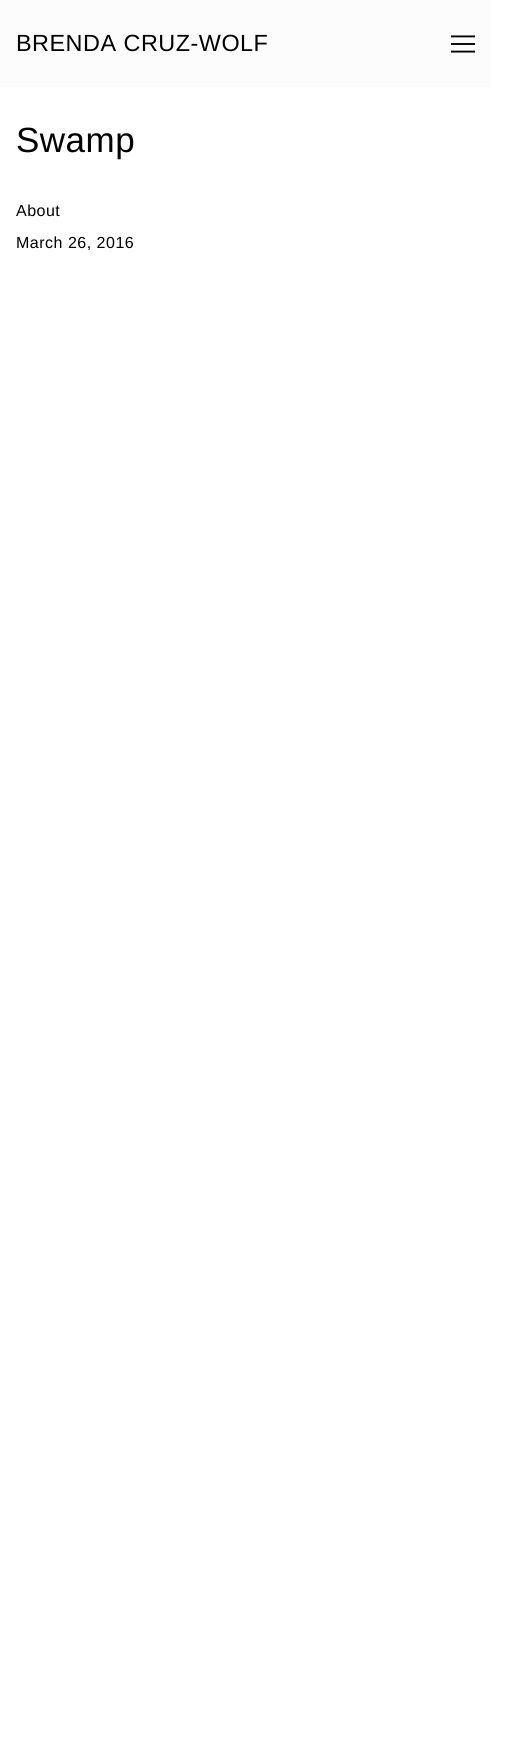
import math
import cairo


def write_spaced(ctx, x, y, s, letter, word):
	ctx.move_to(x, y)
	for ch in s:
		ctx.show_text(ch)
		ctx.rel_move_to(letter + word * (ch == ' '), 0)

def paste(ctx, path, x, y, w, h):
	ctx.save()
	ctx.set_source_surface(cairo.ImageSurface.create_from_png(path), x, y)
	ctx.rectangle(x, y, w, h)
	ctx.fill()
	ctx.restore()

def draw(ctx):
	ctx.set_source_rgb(1, 1, 1)
	ctx.paint()
	ctx.set_source_rgb(0.988, 0.988, 0.988)
	ctx.rectangle(0, 0, 491, 87)
	ctx.fill()
	ctx.select_font_face('Liberation Sans')
	ctx.set_font_size(23.4)
	ctx.set_source_rgb(0, 0, 0)
	write_spaced(ctx, 16, 51, 'BRENDA CRUZ-WOLF', 0.5, 0)
	paste(ctx, 'media/1.png', 451, 35, 24, 18)
	ctx.set_font_size(35)
	write_spaced(ctx, 16, 152, 'Swamp', 0.5, 0)
	ctx.set_font_size(16)
	write_spaced(ctx, 16, 216, 'About', 0.5, 0)
	write_spaced(ctx, 16, 248, 'March 26, 2016', 0.5, 0)


surface = cairo.ImageSurface(cairo.FORMAT_RGB24, 506, 1764)
ctx = cairo.Context(surface)
options = cairo.FontOptions()
options.set_hint_metrics(cairo.HINT_METRICS_OFF)
options.set_hint_style(cairo.HINT_STYLE_NONE)
ctx.set_font_options(options)
ctx.set_miter_limit(4)
draw(ctx)
surface.write_to_png('image.png')
